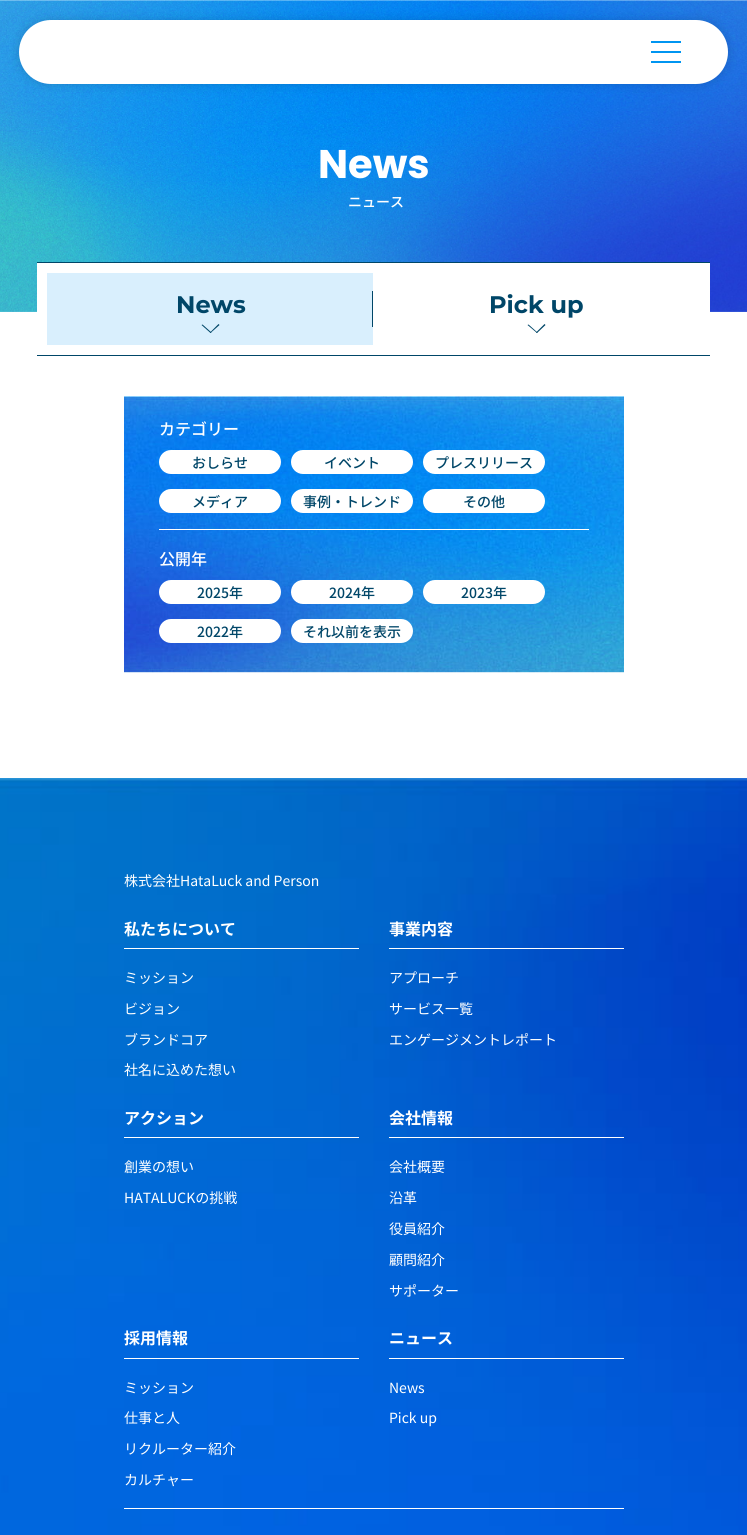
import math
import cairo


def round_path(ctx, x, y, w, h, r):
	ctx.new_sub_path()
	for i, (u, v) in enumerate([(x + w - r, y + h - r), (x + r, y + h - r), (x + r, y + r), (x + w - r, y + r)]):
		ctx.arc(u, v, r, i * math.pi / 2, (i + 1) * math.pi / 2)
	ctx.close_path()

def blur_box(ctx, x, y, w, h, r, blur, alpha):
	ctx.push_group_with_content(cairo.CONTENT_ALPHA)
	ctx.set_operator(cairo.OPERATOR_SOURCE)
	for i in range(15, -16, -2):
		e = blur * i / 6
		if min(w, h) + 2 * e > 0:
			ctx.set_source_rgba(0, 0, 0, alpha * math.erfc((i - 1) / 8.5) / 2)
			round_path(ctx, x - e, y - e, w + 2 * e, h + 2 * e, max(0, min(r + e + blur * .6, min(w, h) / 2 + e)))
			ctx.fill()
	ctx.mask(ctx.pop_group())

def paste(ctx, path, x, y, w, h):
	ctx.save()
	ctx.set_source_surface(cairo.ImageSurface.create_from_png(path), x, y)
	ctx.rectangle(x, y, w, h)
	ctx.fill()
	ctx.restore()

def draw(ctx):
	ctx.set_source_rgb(1, 1, 1)
	ctx.paint()
	paste(ctx, 'media/1.png', 0, 0, 747, 312)
	ctx.set_source_rgb(0, 0, 0)
	blur_box(ctx, 19, 20, 709, 64, 32, 5.5, 0.15)
	ctx.set_source_rgb(1, 1, 1)
	round_path(ctx, 19, 20, 709, 64, 32)
	ctx.fill()
	ctx.set_source_rgb(0, 0.584, 0.945)
	ctx.rectangle(651, 41, 30, 2)
	ctx.rectangle(651, 51, 30, 2)
	ctx.rectangle(651, 61, 30, 2)
	ctx.fill()
	ctx.select_font_face('Poppins', cairo.FONT_SLANT_NORMAL, cairo.FONT_WEIGHT_BOLD)
	ctx.set_font_size(40)
	ctx.set_source_rgb(1, 1, 1)
	ctx.move_to(318, 178)
	ctx.show_text('News')
	ctx.select_font_face('Noto Sans JP Medium')
	ctx.set_font_size(14)
	ctx.move_to(348, 207)
	ctx.show_text('ニュース')
	ctx.rectangle(37, 263, 673, 49)
	ctx.fill()
	ctx.set_source_rgb(0, 0.275, 0.408)
	ctx.rectangle(37, 262, 673, 1)
	ctx.rectangle(37, 355, 673, 1)
	ctx.fill()
	ctx.set_source_rgb(0.851, 0.937, 0.992)
	ctx.rectangle(47, 273, 326, 72)
	ctx.fill()
	ctx.select_font_face('Montserrat', cairo.FONT_SLANT_NORMAL, cairo.FONT_WEIGHT_BOLD)
	ctx.set_font_size(24)
	ctx.set_source_rgb(0, 0.275, 0.408)
	ctx.move_to(176, 313)
	ctx.show_text('News')
	ctx.rectangle(372, 291, 1, 36)
	ctx.fill()
	ctx.new_path()
	ctx.move_to(218.5, 324)
	ctx.line_to(219.5, 325)
	ctx.line_to(210.5, 333)
	ctx.line_to(210, 332.5)
	ctx.close_path()
	ctx.fill()
	ctx.new_path()
	ctx.move_to(202.5, 324.5)
	ctx.line_to(211.5, 332.5)
	ctx.line_to(210.5, 333)
	ctx.line_to(201.5, 325)
	ctx.close_path()
	ctx.fill()
	ctx.move_to(489, 313)
	ctx.show_text('Pick up')
	ctx.new_path()
	ctx.move_to(544.5, 324)
	ctx.line_to(545.5, 325)
	ctx.line_to(537, 333)
	ctx.line_to(536, 332.5)
	ctx.close_path()
	ctx.fill()
	ctx.new_path()
	ctx.move_to(528.5, 324.5)
	ctx.line_to(537.5, 332.5)
	ctx.line_to(537, 333)
	ctx.line_to(527.5, 325)
	ctx.close_path()
	ctx.fill()
	paste(ctx, 'media/2.png', 124, 396, 500, 277)
	ctx.select_font_face('Noto Sans JP Medium')
	ctx.set_font_size(16)
	ctx.set_source_rgb(1, 1, 1)
	ctx.move_to(159, 435)
	ctx.show_text('カテゴリー')
	round_path(ctx, 159, 450, 122, 24, 12)
	ctx.fill()
	ctx.set_font_size(14)
	ctx.set_source_rgb(0, 0.275, 0.408)
	ctx.move_to(192, 468)
	ctx.show_text('おしらせ')
	ctx.set_source_rgb(1, 1, 1)
	round_path(ctx, 291, 450, 122, 24, 12)
	ctx.fill()
	ctx.set_source_rgb(0, 0.275, 0.408)
	ctx.move_to(324, 468)
	ctx.show_text('イベント')
	ctx.set_source_rgb(1, 1, 1)
	round_path(ctx, 423, 450, 122, 24, 12)
	ctx.fill()
	ctx.set_source_rgb(0, 0.275, 0.408)
	ctx.move_to(435, 468)
	ctx.show_text('プレスリリース')
	ctx.set_source_rgb(1, 1, 1)
	round_path(ctx, 159, 489, 122, 24, 12)
	ctx.fill()
	ctx.set_source_rgb(0, 0.275, 0.408)
	ctx.move_to(192, 507)
	ctx.show_text('メディア')
	ctx.set_source_rgb(1, 1, 1)
	round_path(ctx, 291, 489, 122, 24, 12)
	ctx.fill()
	ctx.set_source_rgb(0, 0.275, 0.408)
	ctx.move_to(303, 507)
	ctx.show_text('事例・トレンド')
	ctx.set_source_rgb(1, 1, 1)
	round_path(ctx, 423, 489, 122, 24, 12)
	ctx.fill()
	ctx.set_source_rgb(0, 0.275, 0.408)
	ctx.move_to(463, 507)
	ctx.show_text('その他')
	ctx.set_source_rgb(1, 1, 1)
	ctx.rectangle(159, 529, 430, 1)
	ctx.fill()
	ctx.set_font_size(16)
	ctx.move_to(159, 565)
	ctx.show_text('公開年')
	round_path(ctx, 159, 580, 122, 24, 12)
	ctx.fill()
	ctx.set_font_size(14)
	ctx.set_source_rgb(0, 0.275, 0.408)
	ctx.move_to(197, 598)
	ctx.show_text('2025年')
	ctx.set_source_rgb(1, 1, 1)
	round_path(ctx, 291, 580, 122, 24, 12)
	ctx.fill()
	ctx.set_source_rgb(0, 0.275, 0.408)
	ctx.move_to(329, 598)
	ctx.show_text('2024年')
	ctx.set_source_rgb(1, 1, 1)
	round_path(ctx, 423, 580, 122, 24, 12)
	ctx.fill()
	ctx.set_source_rgb(0, 0.275, 0.408)
	ctx.move_to(461, 598)
	ctx.show_text('2023年')
	ctx.set_source_rgb(1, 1, 1)
	round_path(ctx, 159, 619, 122, 24, 12)
	ctx.fill()
	ctx.set_source_rgb(0, 0.275, 0.408)
	ctx.move_to(197, 637)
	ctx.show_text('2022年')
	ctx.set_source_rgb(1, 1, 1)
	round_path(ctx, 291, 619, 122, 24, 12)
	ctx.fill()
	ctx.set_source_rgb(0, 0.275, 0.408)
	ctx.move_to(303, 637)
	ctx.show_text('それ以前を表示')
	paste(ctx, 'media/3.png', 0, 778, 747, 757)
	ctx.select_font_face('Noto Sans JP')
	ctx.set_source_rgb(1, 1, 1)
	ctx.move_to(124, 886)
	ctx.show_text('株式会社HataLuck and Person')
	ctx.rectangle(124, 948, 235, 1)
	ctx.fill()
	ctx.select_font_face('Noto Sans JP', cairo.FONT_SLANT_NORMAL, cairo.FONT_WEIGHT_BOLD)
	ctx.set_font_size(16)
	ctx.move_to(124, 935)
	ctx.show_text('私たちについて')
	ctx.select_font_face('Noto Sans JP')
	ctx.set_font_size(14)
	for x, y, s in [
		(124, 983, 'ミッション'),
		(124, 1014, 'ビジョン'),
		(124, 1045, 'ブランドコア'),
		(124, 1075, '社名に込めた想い'),
	]:
		ctx.move_to(x, y)
		ctx.show_text(s)
	ctx.rectangle(389, 948, 235, 1)
	ctx.fill()
	ctx.select_font_face('Noto Sans JP', cairo.FONT_SLANT_NORMAL, cairo.FONT_WEIGHT_BOLD)
	ctx.set_font_size(16)
	ctx.move_to(389, 935)
	ctx.show_text('事業内容')
	ctx.select_font_face('Noto Sans JP')
	ctx.set_font_size(14)
	for x, y, s in [
		(389, 983, 'アプローチ'),
		(389, 1014, 'サービス一覧'),
		(389, 1045, 'エンゲージメントレポート'),
	]:
		ctx.move_to(x, y)
		ctx.show_text(s)
	ctx.rectangle(124, 1137, 235, 1)
	ctx.fill()
	ctx.select_font_face('Noto Sans JP', cairo.FONT_SLANT_NORMAL, cairo.FONT_WEIGHT_BOLD)
	ctx.set_font_size(16)
	ctx.move_to(124, 1124)
	ctx.show_text('アクション')
	ctx.select_font_face('Noto Sans JP')
	ctx.set_font_size(14)
	ctx.move_to(124, 1172)
	ctx.show_text('創業の想い')
	ctx.move_to(124, 1203)
	ctx.show_text('HATALUCKの挑戦')
	ctx.rectangle(389, 1137, 235, 1)
	ctx.fill()
	ctx.select_font_face('Noto Sans JP', cairo.FONT_SLANT_NORMAL, cairo.FONT_WEIGHT_BOLD)
	ctx.set_font_size(16)
	ctx.move_to(389, 1124)
	ctx.show_text('会社情報')
	ctx.select_font_face('Noto Sans JP')
	ctx.set_font_size(14)
	for x, y, s in [
		(389, 1172, '会社概要'),
		(389, 1203, '沿革'),
		(389, 1234, '役員紹介'),
		(389, 1265, '顧問紹介'),
		(389, 1296, 'サポーター'),
	]:
		ctx.move_to(x, y)
		ctx.show_text(s)
	ctx.rectangle(124, 1358, 235, 1)
	ctx.fill()
	ctx.select_font_face('Noto Sans JP', cairo.FONT_SLANT_NORMAL, cairo.FONT_WEIGHT_BOLD)
	ctx.set_font_size(16)
	ctx.move_to(124, 1344)
	ctx.show_text('採用情報')
	ctx.select_font_face('Noto Sans JP')
	ctx.set_font_size(14)
	for x, y, s in [
		(124, 1393, 'ミッション'),
		(124, 1423, '仕事と人'),
		(124, 1454, 'リクルーター紹介'),
		(124, 1485, 'カルチャー'),
	]:
		ctx.move_to(x, y)
		ctx.show_text(s)
	ctx.rectangle(389, 1358, 235, 1)
	ctx.fill()
	ctx.select_font_face('Noto Sans JP', cairo.FONT_SLANT_NORMAL, cairo.FONT_WEIGHT_BOLD)
	ctx.set_font_size(16)
	ctx.move_to(389, 1344)
	ctx.show_text('ニュース')
	ctx.select_font_face('Noto Sans JP')
	ctx.set_font_size(14)
	ctx.move_to(389, 1393)
	ctx.show_text('News')
	ctx.move_to(389, 1423)
	ctx.show_text('Pick up')
	ctx.rectangle(124, 1508, 500, 1)
	ctx.fill()


surface = cairo.ImageSurface(cairo.FORMAT_RGB24, 747, 1535)
ctx = cairo.Context(surface)
options = cairo.FontOptions()
options.set_hint_metrics(cairo.HINT_METRICS_OFF)
options.set_hint_style(cairo.HINT_STYLE_NONE)
ctx.set_font_options(options)
ctx.set_miter_limit(4)
draw(ctx)
surface.write_to_png('image.png')
